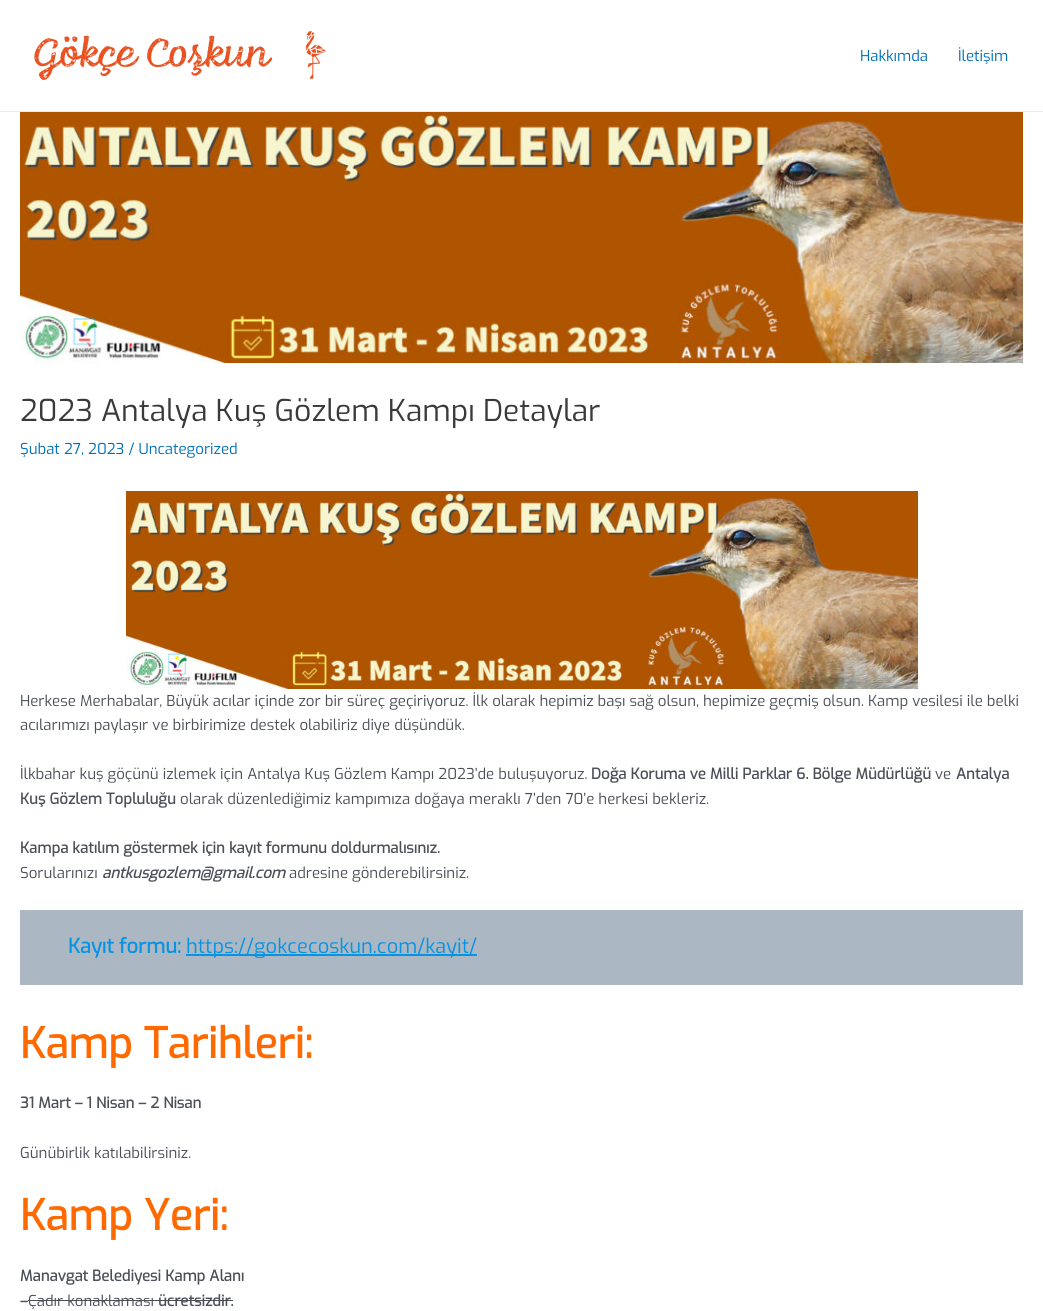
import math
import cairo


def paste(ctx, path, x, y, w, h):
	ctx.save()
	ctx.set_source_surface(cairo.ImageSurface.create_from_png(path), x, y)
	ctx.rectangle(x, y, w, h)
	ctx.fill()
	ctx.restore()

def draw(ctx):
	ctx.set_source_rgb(1, 1, 1)
	ctx.paint()
	ctx.set_source_rgb(0.918, 0.918, 0.918)
	ctx.rectangle(0, 111, 1043, 1)
	ctx.fill()
	paste(ctx, 'media/1.png', 34, 31, 292, 50)
	ctx.select_font_face('Exo')
	ctx.set_font_size(15)
	ctx.set_source_rgb(0.004, 0.439, 0.725)
	ctx.move_to(860, 61)
	ctx.show_text('Hakkımda')
	ctx.move_to(958, 61)
	ctx.show_text('İletişim')
	paste(ctx, 'media/2.png', 20, 112, 1003, 251)
	ctx.set_font_size(30)
	ctx.set_source_rgb(0.227, 0.227, 0.227)
	ctx.move_to(20, 421)
	ctx.show_text('2023 Antalya Kuş Gözlem Kampı Detaylar')
	ctx.set_font_size(15)
	ctx.set_source_rgb(0.004, 0.439, 0.725)
	ctx.move_to(20, 454)
	ctx.show_text('Şubat 27, 2023 / Uncategorized')
	paste(ctx, 'media/3.png', 126, 491, 792, 198)
	ctx.set_source_rgb(0.294, 0.31, 0.345)
	for x, y, s in [
		(20, 706, 'Herkese Merhabalar, Büyük acılar içinde zor bir süreç geçiriyoruz. İlk olarak hepimiz başı sağ olsun, hepimize geçmiş olsun. Kamp vesilesi ile belki'),
		(20, 730, 'acılarımızı paylaşır ve birbirimize destek olabiliriz diye düşündük.'),
		(20, 779, 'İlkbahar kuş göçünü izlemek için Antalya Kuş Gözlem Kampı 2023’de buluşuyoruz.'),
	]:
		ctx.move_to(x, y)
		ctx.show_text(s)
	ctx.select_font_face('Exo', cairo.FONT_SLANT_NORMAL, cairo.FONT_WEIGHT_BOLD)
	ctx.move_to(591, 779)
	ctx.show_text('Doğa Koruma ve Milli Parklar 6. Bölge Müdürlüğü')
	ctx.select_font_face('Exo')
	ctx.move_to(935, 779)
	ctx.show_text('ve')
	ctx.select_font_face('Exo', cairo.FONT_SLANT_NORMAL, cairo.FONT_WEIGHT_BOLD)
	ctx.move_to(956, 779)
	ctx.show_text('Antalya')
	ctx.move_to(20, 804)
	ctx.show_text('Kuş Gözlem Topluluğu')
	ctx.select_font_face('Exo')
	ctx.move_to(180, 804)
	ctx.show_text('olarak düzenlediğimiz kampımıza doğaya meraklı 7’den 70’e herkesi bekleriz.')
	ctx.select_font_face('Exo', cairo.FONT_SLANT_NORMAL, cairo.FONT_WEIGHT_BOLD)
	ctx.move_to(20, 853)
	ctx.show_text('Kampa katılım göstermek için kayıt formunu doldurmalısınız.')
	ctx.select_font_face('Exo')
	ctx.move_to(20, 878)
	ctx.show_text('Sorularınızı')
	ctx.select_font_face('Exo', cairo.FONT_SLANT_ITALIC, cairo.FONT_WEIGHT_BOLD)
	ctx.move_to(102, 878)
	ctx.show_text('antkusgozlem@gmail.com')
	ctx.select_font_face('Exo')
	ctx.move_to(289, 878)
	ctx.show_text('adresine gönderebilirsiniz.')
	ctx.set_source_rgb(0.671, 0.722, 0.765)
	ctx.rectangle(20, 910, 1003, 75)
	ctx.fill()
	ctx.select_font_face('Exo', cairo.FONT_SLANT_NORMAL, cairo.FONT_WEIGHT_BOLD)
	ctx.set_font_size(20)
	ctx.set_source_rgb(0.024, 0.576, 0.89)
	ctx.move_to(68, 953)
	ctx.show_text('Kayıt formu:')
	ctx.rectangle(186, 954, 291, 2)
	ctx.fill()
	ctx.select_font_face('Exo')
	ctx.move_to(186, 953)
	ctx.show_text('https://gokcecoskun.com/kayit/')
	ctx.select_font_face('Exo', cairo.FONT_SLANT_NORMAL, cairo.FONT_WEIGHT_BOLD)
	ctx.set_font_size(42)
	ctx.set_source_rgb(1, 0.412, 0)
	ctx.move_to(20, 1058)
	ctx.show_text('Kamp Tarihleri:')
	ctx.set_font_size(15)
	ctx.set_source_rgb(0.294, 0.31, 0.345)
	ctx.move_to(20, 1108)
	ctx.show_text('31 Mart – 1 Nisan – 2 Nisan')
	ctx.select_font_face('Exo')
	ctx.move_to(20, 1158)
	ctx.show_text('Günübirlik katılabilirsiniz.')
	ctx.select_font_face('Exo', cairo.FONT_SLANT_NORMAL, cairo.FONT_WEIGHT_BOLD)
	ctx.set_font_size(42)
	ctx.set_source_rgb(1, 0.412, 0)
	ctx.move_to(20, 1230)
	ctx.show_text('Kamp Yeri:')
	ctx.set_font_size(15)
	ctx.set_source_rgb(0.294, 0.31, 0.345)
	ctx.move_to(20, 1281)
	ctx.show_text('Manavgat Belediyesi Kamp Alanı')
	ctx.move_to(20, 1306)
	ctx.show_text('–')
	ctx.select_font_face('Exo')
	ctx.move_to(28, 1306)
	ctx.show_text('Çadır konaklaması')
	ctx.select_font_face('Exo', cairo.FONT_SLANT_NORMAL, cairo.FONT_WEIGHT_BOLD)
	ctx.move_to(158, 1306)
	ctx.show_text('ücretsizdir.')
	ctx.rectangle(28, 1300, 130, 1)
	ctx.fill()
	ctx.rectangle(158, 1300, 75, 1)
	ctx.fill()


surface = cairo.ImageSurface(cairo.FORMAT_RGB24, 1043, 1311)
ctx = cairo.Context(surface)
options = cairo.FontOptions()
options.set_hint_metrics(cairo.HINT_METRICS_OFF)
options.set_hint_style(cairo.HINT_STYLE_NONE)
ctx.set_font_options(options)
ctx.set_miter_limit(4)
draw(ctx)
surface.write_to_png('image.png')
